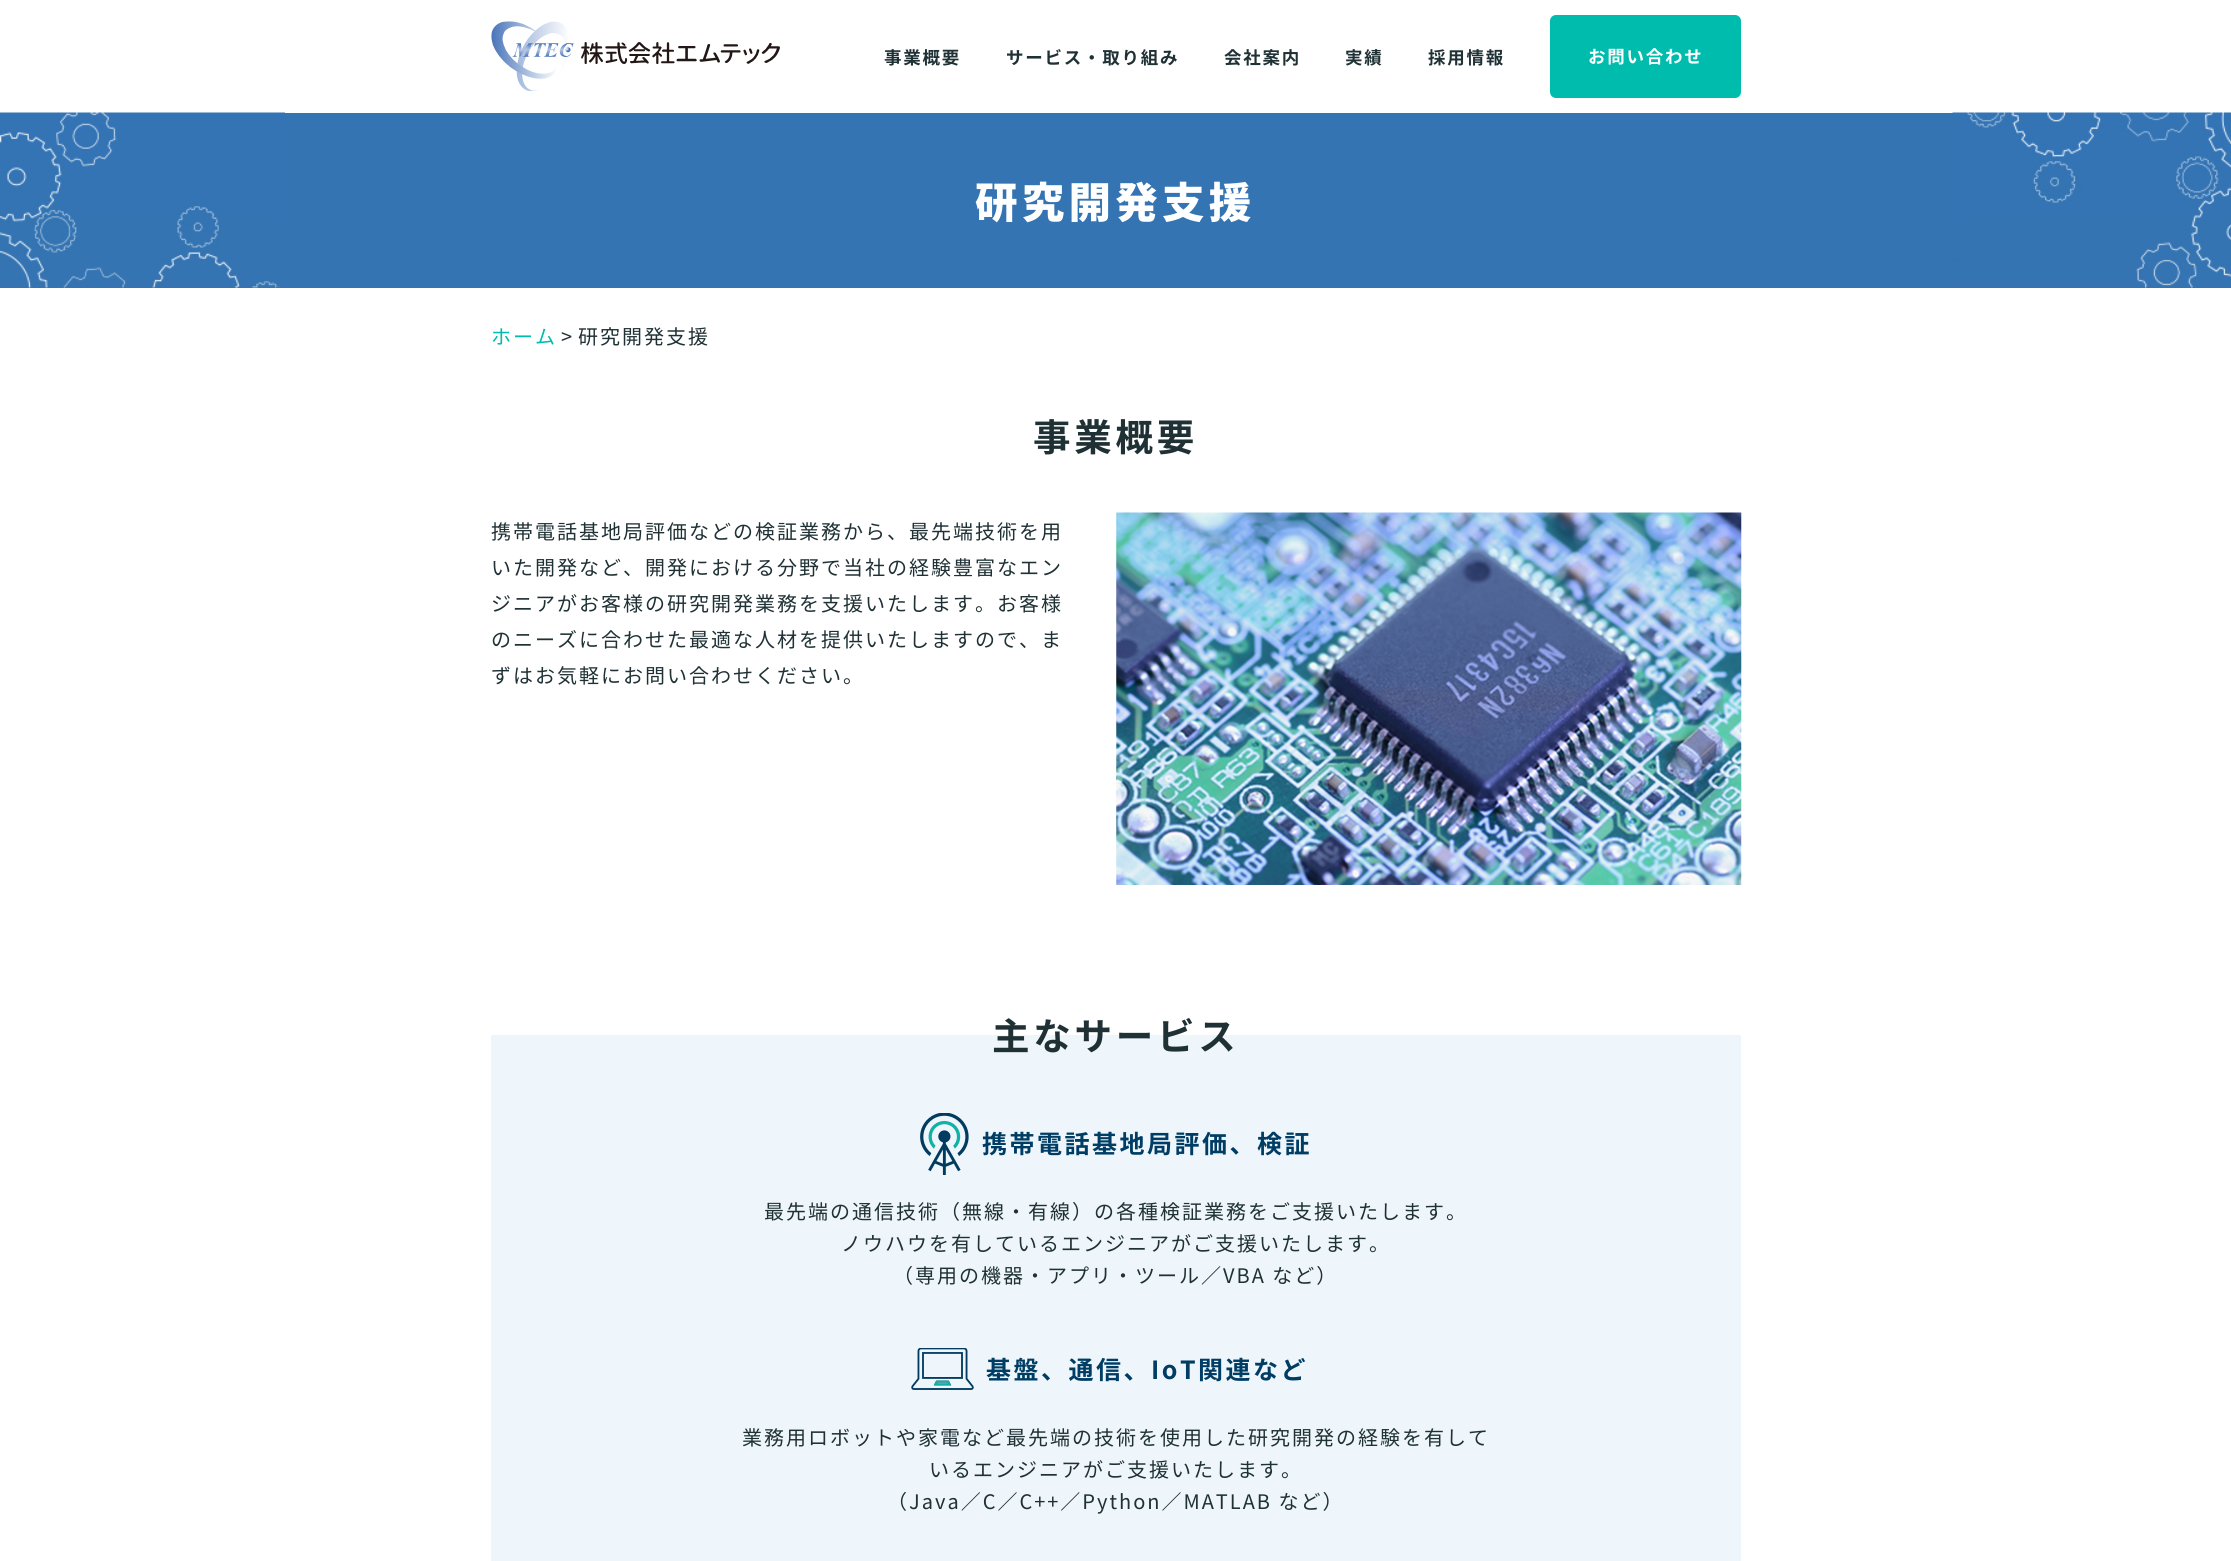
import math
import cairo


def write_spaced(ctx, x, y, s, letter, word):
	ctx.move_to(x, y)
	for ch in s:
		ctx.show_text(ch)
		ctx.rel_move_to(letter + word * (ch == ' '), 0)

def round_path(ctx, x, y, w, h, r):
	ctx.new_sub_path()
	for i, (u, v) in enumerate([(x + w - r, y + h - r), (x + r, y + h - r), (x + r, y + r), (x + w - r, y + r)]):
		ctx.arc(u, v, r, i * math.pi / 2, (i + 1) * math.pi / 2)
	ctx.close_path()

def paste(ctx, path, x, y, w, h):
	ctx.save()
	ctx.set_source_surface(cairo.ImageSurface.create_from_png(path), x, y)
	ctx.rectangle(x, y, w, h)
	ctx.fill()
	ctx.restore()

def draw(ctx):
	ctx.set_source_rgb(1, 1, 1)
	ctx.paint()
	paste(ctx, 'media/1.png', 491, 21, 289, 70)
	ctx.select_font_face('Noto Sans CJK JP', cairo.FONT_SLANT_NORMAL, cairo.FONT_WEIGHT_BOLD)
	ctx.set_font_size(17.5)
	ctx.set_source_rgb(0.122, 0.192, 0.208)
	for x, y, s in [
		(884, 64, '事業概要'),
		(1006, 64, 'サービス・取り組み'),
		(1224, 64, '会社案内'),
		(1345, 64, '実績'),
		(1428, 64, '採用情報'),
	]:
		write_spaced(ctx, x, y, s, 1.75, 0)
	ctx.set_source_rgb(0, 0.737, 0.678)
	round_path(ctx, 1550, 15, 191, 83, 6)
	ctx.fill()
	ctx.set_source_rgb(1, 1, 1)
	write_spaced(ctx, 1588, 63, 'お問い合わせ', 1.75, 0)
	ctx.set_source_rgb(0.204, 0.455, 0.702)
	ctx.rectangle(0, 113, 2231, 175)
	ctx.fill()
	paste(ctx, 'media/2.png', 0, 112, 2231, 176)
	ctx.select_font_face('Noto Sans CJK JP Black')
	ctx.set_font_size(42.5)
	ctx.set_source_rgb(1, 1, 1)
	write_spaced(ctx, 975, 218, '研究開発支援', 4.25, 0)
	ctx.select_font_face('Noto Sans CJK JP')
	ctx.set_font_size(20)
	ctx.set_source_rgb(0, 0.737, 0.678)
	write_spaced(ctx, 491, 344, 'ホーム', 2, 0)
	ctx.set_source_rgb(0.122, 0.192, 0.208)
	write_spaced(ctx, 561, 344, '>', 2, 0)
	write_spaced(ctx, 578, 344, '研究開発支援', 2, 0)
	ctx.select_font_face('Noto Sans CJK JP', cairo.FONT_SLANT_NORMAL, cairo.FONT_WEIGHT_BOLD)
	ctx.set_font_size(37.5)
	write_spaced(ctx, 1033, 451, '事業概要', 3.75, 0)
	ctx.select_font_face('Noto Sans CJK JP')
	ctx.set_font_size(20)
	for x, y, s in [
		(491, 539, '携帯電話基地局評価などの検証業務から、最先端技術を用'),
		(491, 575, 'いた開発など、開発における分野で当社の経験豊富なエン'),
		(491, 611, 'ジニアがお客様の研究開発業務を支援いたします。お客様'),
		(491, 647, 'のニーズに合わせた最適な人材を提供いたしますので、ま'),
		(491, 683, 'ずはお気軽にお問い合わせください。'),
	]:
		write_spaced(ctx, x, y, s, 2, 0)
	paste(ctx, 'media/3.png', 1116, 512, 626, 373)
	ctx.set_source_rgb(0.933, 0.961, 0.988)
	ctx.rectangle(491, 1035, 1250, 526)
	ctx.fill()
	ctx.select_font_face('Noto Sans CJK JP', cairo.FONT_SLANT_NORMAL, cairo.FONT_WEIGHT_BOLD)
	ctx.set_font_size(37.5)
	ctx.set_source_rgb(0.122, 0.192, 0.208)
	write_spaced(ctx, 992, 1050, '主なサービス', 3.75, 0)
	paste(ctx, 'media/4.png', 920, 1113, 49, 62)
	ctx.set_font_size(25)
	ctx.set_source_rgb(0, 0.239, 0.392)
	write_spaced(ctx, 982, 1153, '携帯電話基地局評価、検証', 2.5, 0)
	ctx.select_font_face('Noto Sans CJK JP')
	ctx.set_font_size(20)
	ctx.set_source_rgb(0.122, 0.192, 0.208)
	for x, y, s in [
		(764, 1219, '最先端の通信技術（無線・有線）の各種検証業務をご支援いたします。'),
		(841, 1251, 'ノウハウを有しているエンジニアがご支援いたします。'),
		(893, 1283, '（専用の機器・アプリ・ツール／VBA など）'),
	]:
		write_spaced(ctx, x, y, s, 2, 0)
	paste(ctx, 'media/5.png', 911, 1348, 63, 42)
	ctx.select_font_face('Noto Sans CJK JP', cairo.FONT_SLANT_NORMAL, cairo.FONT_WEIGHT_BOLD)
	ctx.set_font_size(25)
	ctx.set_source_rgb(0, 0.239, 0.392)
	write_spaced(ctx, 986, 1379, '基盤、通信、IoT関連など', 2.5, 0)
	ctx.select_font_face('Noto Sans CJK JP')
	ctx.set_font_size(20)
	ctx.set_source_rgb(0.122, 0.192, 0.208)
	for x, y, s in [
		(742, 1445, '業務用ロボットや家電など最先端の技術を使用した研究開発の経験を有して'),
		(929, 1477, 'いるエンジニアがご支援いたします。'),
		(887, 1509, '（Java／C／C++／Python／MATLAB など）'),
	]:
		write_spaced(ctx, x, y, s, 2, 0)


surface = cairo.ImageSurface(cairo.FORMAT_RGB24, 2231, 1561)
ctx = cairo.Context(surface)
options = cairo.FontOptions()
options.set_hint_metrics(cairo.HINT_METRICS_OFF)
options.set_hint_style(cairo.HINT_STYLE_NONE)
ctx.set_font_options(options)
ctx.set_miter_limit(4)
draw(ctx)
surface.write_to_png('image.png')
